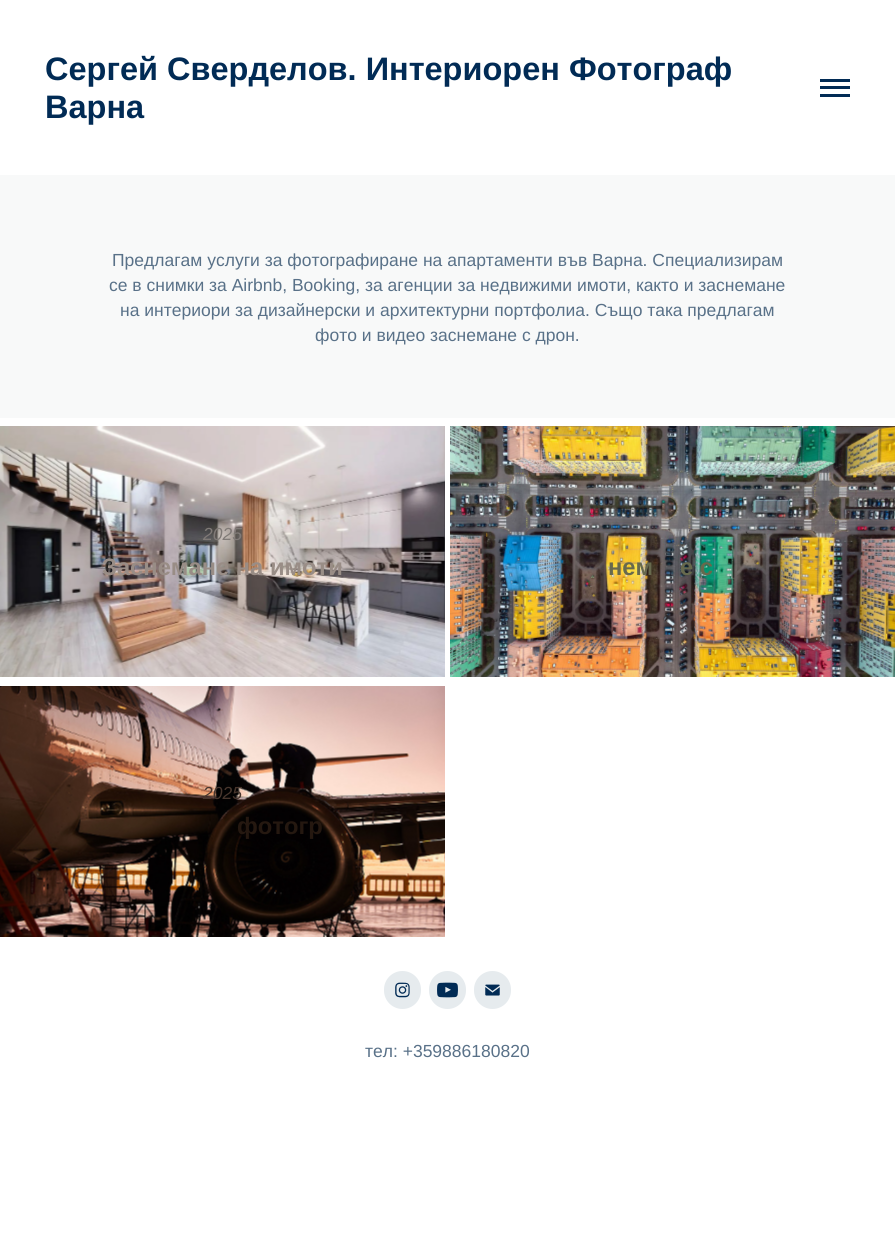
import math
import cairo


def round_path(ctx, x, y, w, h, r):
	ctx.new_sub_path()
	for i, (u, v) in enumerate([(x + w - r, y + h - r), (x + r, y + h - r), (x + r, y + r), (x + w - r, y + r)]):
		ctx.arc(u, v, r, i * math.pi / 2, (i + 1) * math.pi / 2)
	ctx.close_path()

def paste(ctx, path, x, y, w, h):
	ctx.save()
	ctx.set_source_surface(cairo.ImageSurface.create_from_png(path), x, y)
	ctx.rectangle(x, y, w, h)
	ctx.fill()
	ctx.restore()

def draw(ctx):
	ctx.set_source_rgb(1, 1, 1)
	ctx.paint()
	ctx.select_font_face('Liberation Sans', cairo.FONT_SLANT_NORMAL, cairo.FONT_WEIGHT_BOLD)
	ctx.set_font_size(32.5)
	ctx.set_source_rgb(0.004, 0.169, 0.333)
	ctx.move_to(45, 80)
	ctx.show_text('Сергей Сверделов. Интериорен Фотограф')
	ctx.move_to(45, 118)
	ctx.show_text('Варна')
	ctx.rectangle(820, 79, 30, 3)
	ctx.rectangle(820, 86, 30, 3)
	ctx.rectangle(820, 94, 30, 3)
	ctx.fill()
	ctx.set_source_rgb(0.969, 0.973, 0.976)
	ctx.rectangle(0, 175, 895, 243)
	ctx.fill()
	ctx.select_font_face('Liberation Sans')
	ctx.set_font_size(17.5)
	ctx.set_source_rgb(0.349, 0.443, 0.533)
	for x, y, s in [
		(112, 266, 'Предлагам услуги за фотографиране на апартаменти във Варна. Специализирам'),
		(109, 291, 'се в снимки за Airbnb, Booking, за агенции за недвижими имоти, както и заснемане'),
		(120, 316, 'на интериори за дизайнерски и архитектурни портфолиа. Също така предлагам'),
		(315, 341, 'фото и видео заснемане с дрон.'),
	]:
		ctx.move_to(x, y)
		ctx.show_text(s)
	paste(ctx, 'media/1.png', 0, 426, 445, 251)
	ctx.select_font_face('Liberation Sans', cairo.FONT_SLANT_ITALIC)
	ctx.set_source_rgb(0.502, 0.478, 0.467)
	ctx.move_to(203, 540)
	ctx.show_text('2025')
	ctx.select_font_face('Liberation Sans', cairo.FONT_SLANT_NORMAL, cairo.FONT_WEIGHT_BOLD)
	ctx.set_font_size(23.75)
	ctx.set_source_rgb(0.6, 0.553, 0.525)
	ctx.move_to(102, 575)
	ctx.show_text('Заснемане на имоти')
	paste(ctx, 'media/2.png', 450, 426, 445, 251)
	ctx.set_source_rgb(0.404, 0.412, 0.302)
	ctx.move_to(608, 575)
	ctx.show_text('нем')
	ctx.move_to(680, 575)
	ctx.show_text('е с')
	paste(ctx, 'media/3.png', 0, 686, 445, 251)
	ctx.select_font_face('Liberation Sans', cairo.FONT_SLANT_ITALIC)
	ctx.set_font_size(17.5)
	ctx.set_source_rgb(0.282, 0.212, 0.176)
	ctx.move_to(203, 799)
	ctx.show_text('2025')
	ctx.select_font_face('Liberation Sans', cairo.FONT_SLANT_NORMAL, cairo.FONT_WEIGHT_BOLD)
	ctx.set_font_size(23.75)
	ctx.set_source_rgb(0.145, 0.094, 0.063)
	ctx.move_to(237, 834)
	ctx.show_text('фотогр')
	ctx.set_source_rgb(0.902, 0.918, 0.933)
	round_path(ctx, 384, 971, 37, 38, 18.5)
	ctx.fill()
	paste(ctx, 'media/4.png', 395, 982, 15, 16)
	round_path(ctx, 429, 971, 37, 38, 18.5)
	ctx.fill()
	paste(ctx, 'media/5.png', 437, 982, 21, 16)
	round_path(ctx, 474, 971, 37, 38, 18.5)
	ctx.fill()
	paste(ctx, 'media/6.png', 485, 984, 15, 12)
	ctx.select_font_face('Liberation Sans')
	ctx.set_font_size(17.5)
	ctx.set_source_rgb(0.349, 0.443, 0.533)
	ctx.move_to(365, 1057)
	ctx.show_text('тел: +359886180820')


surface = cairo.ImageSurface(cairo.FORMAT_RGB24, 895, 1252)
ctx = cairo.Context(surface)
options = cairo.FontOptions()
options.set_hint_metrics(cairo.HINT_METRICS_OFF)
options.set_hint_style(cairo.HINT_STYLE_NONE)
ctx.set_font_options(options)
ctx.set_miter_limit(4)
draw(ctx)
surface.write_to_png('image.png')
